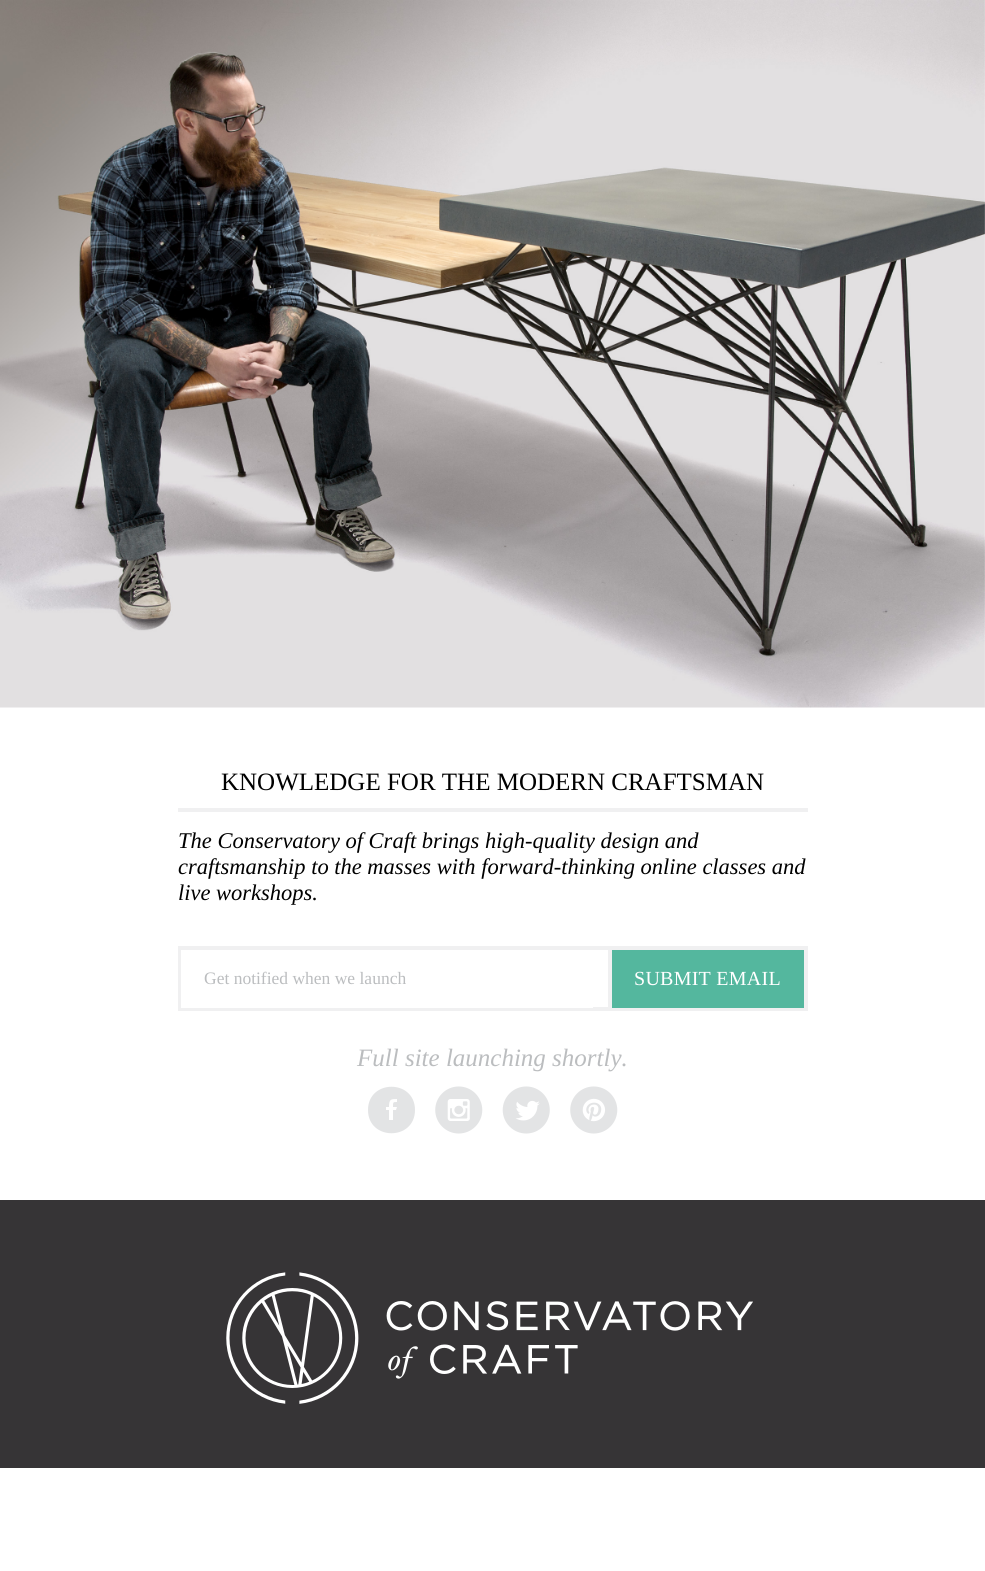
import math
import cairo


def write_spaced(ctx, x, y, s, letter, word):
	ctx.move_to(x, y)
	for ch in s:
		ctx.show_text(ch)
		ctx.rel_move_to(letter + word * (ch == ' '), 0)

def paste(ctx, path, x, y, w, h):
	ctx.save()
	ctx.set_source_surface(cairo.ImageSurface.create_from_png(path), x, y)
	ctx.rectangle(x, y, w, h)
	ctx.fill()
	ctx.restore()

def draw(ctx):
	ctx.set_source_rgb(1, 1, 1)
	ctx.paint()
	paste(ctx, 'media/1.png', 0, 0, 985, 708)
	ctx.select_font_face('Liberation Serif')
	ctx.set_font_size(25)
	ctx.set_source_rgb(0, 0, 0)
	ctx.move_to(221, 790)
	ctx.show_text('KNOWLEDGE FOR THE MODERN CRAFTSMAN')
	ctx.set_source_rgb(0.941, 0.941, 0.945)
	ctx.rectangle(178, 808, 630, 4)
	ctx.fill()
	ctx.select_font_face('Liberation Serif', cairo.FONT_SLANT_ITALIC)
	ctx.set_font_size(22.5)
	ctx.set_source_rgb(0, 0, 0)
	for x, y, s in [
		(178, 848, 'The Conservatory of Craft brings high-quality design and'),
		(178, 874, 'craftsmanship to the masses with forward-thinking online classes and'),
		(178, 900, 'live workshops.'),
	]:
		ctx.move_to(x, y)
		ctx.show_text(s)
	ctx.rectangle(180, 948, 626, 61)
	ctx.set_source_rgb(0.941, 0.941, 0.945)
	ctx.set_line_width(4)
	ctx.stroke()
	ctx.set_source_rgb(1, 1, 1)
	ctx.rectangle(181, 950, 412, 58)
	ctx.fill()
	ctx.select_font_face('Liberation Serif')
	ctx.set_font_size(17.5)
	ctx.set_source_rgb(0.733, 0.741, 0.749)
	ctx.move_to(204, 984)
	ctx.show_text('Get notified when we launch')
	ctx.set_source_rgb(0.329, 0.718, 0.62)
	ctx.rectangle(612, 950, 192, 58)
	ctx.fill()
	ctx.set_source_rgb(0.941, 0.941, 0.945)
	ctx.rectangle(608, 950, 4, 58)
	ctx.fill()
	ctx.set_font_size(20)
	ctx.set_source_rgb(1, 1, 1)
	write_spaced(ctx, 634, 985, 'SUBMIT EMAIL', 0.25, 0)
	ctx.select_font_face('Liberation Serif', cairo.FONT_SLANT_ITALIC)
	ctx.set_font_size(25)
	ctx.set_source_rgb(0.733, 0.741, 0.749)
	ctx.move_to(357, 1066)
	ctx.show_text('Full site launching shortly.')
	ctx.set_source_rgb(0.89, 0.894, 0.898)
	ctx.new_path()
	ctx.move_to(415, 1110)
	ctx.curve_to(415, 1141, 368, 1141, 368, 1110)
	ctx.curve_to(368, 1079, 415, 1079, 415, 1110)
	ctx.close_path()
	ctx.move_to(397, 1099)
	ctx.curve_to(391, 1099, 389, 1099, 389, 1107)
	ctx.line_to(386, 1107)
	ctx.line_to(386, 1110)
	ctx.line_to(389, 1110)
	ctx.line_to(389, 1120)
	ctx.line_to(393, 1120)
	ctx.line_to(393, 1110)
	ctx.line_to(396, 1110)
	ctx.line_to(397, 1107)
	ctx.line_to(393, 1107)
	ctx.curve_to(393, 1102, 393, 1102, 397, 1102)
	ctx.close_path()
	ctx.fill()
	paste(ctx, 'media/2.png', 435, 1086, 48, 48)
	paste(ctx, 'media/3.png', 502, 1086, 48, 48)
	paste(ctx, 'media/4.png', 570, 1086, 48, 48)
	ctx.set_source_rgb(0.212, 0.204, 0.212)
	ctx.rectangle(0, 1200, 985, 268)
	ctx.fill()
	paste(ctx, 'media/5.png', 226, 1272, 527, 132)


surface = cairo.ImageSurface(cairo.FORMAT_RGB24, 985, 1571)
ctx = cairo.Context(surface)
options = cairo.FontOptions()
options.set_hint_metrics(cairo.HINT_METRICS_OFF)
options.set_hint_style(cairo.HINT_STYLE_NONE)
ctx.set_font_options(options)
ctx.set_miter_limit(4)
draw(ctx)
surface.write_to_png('image.png')
